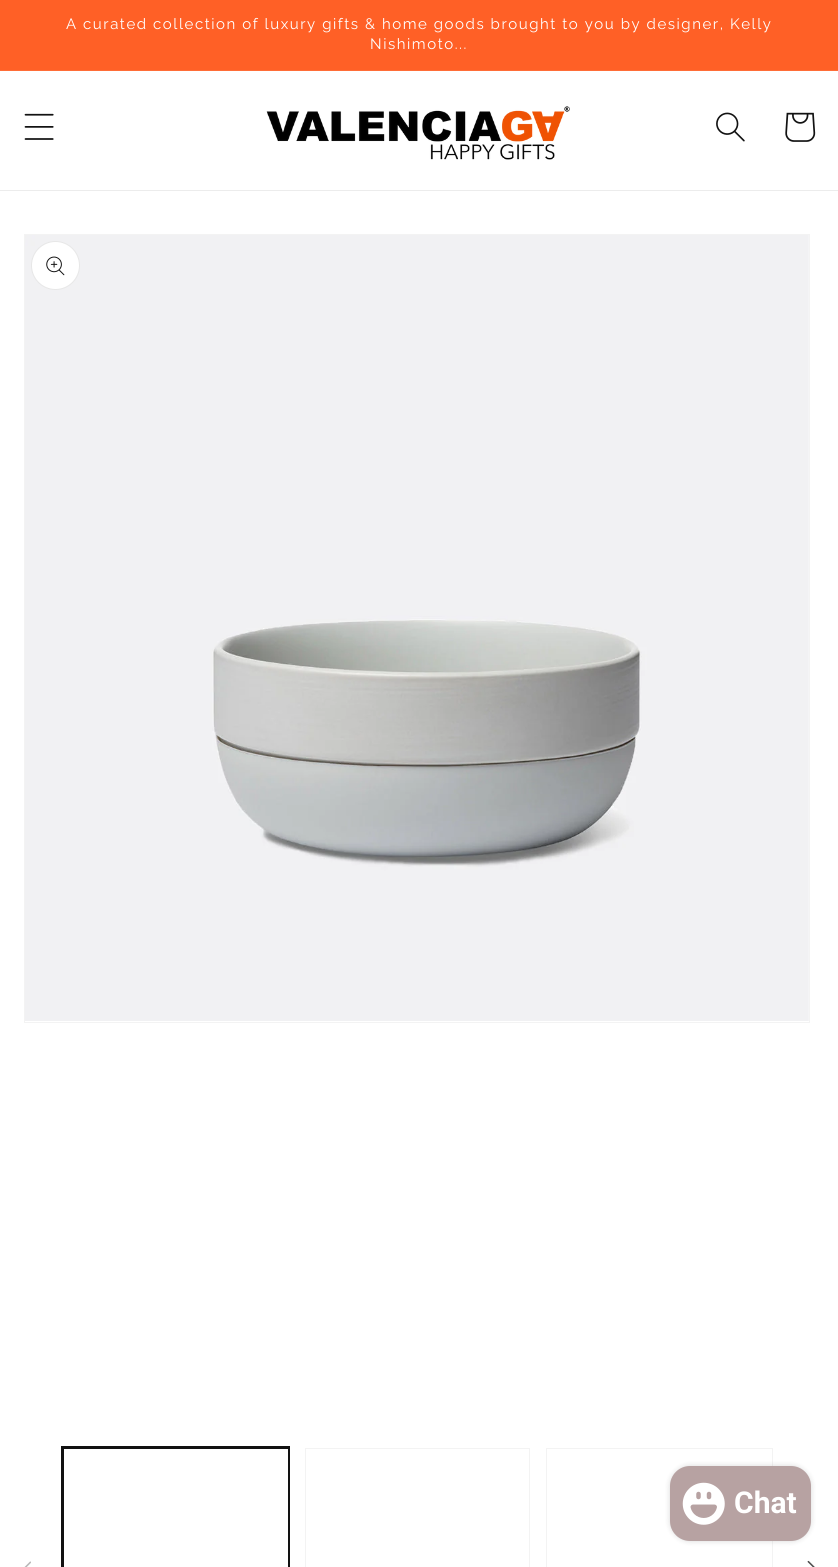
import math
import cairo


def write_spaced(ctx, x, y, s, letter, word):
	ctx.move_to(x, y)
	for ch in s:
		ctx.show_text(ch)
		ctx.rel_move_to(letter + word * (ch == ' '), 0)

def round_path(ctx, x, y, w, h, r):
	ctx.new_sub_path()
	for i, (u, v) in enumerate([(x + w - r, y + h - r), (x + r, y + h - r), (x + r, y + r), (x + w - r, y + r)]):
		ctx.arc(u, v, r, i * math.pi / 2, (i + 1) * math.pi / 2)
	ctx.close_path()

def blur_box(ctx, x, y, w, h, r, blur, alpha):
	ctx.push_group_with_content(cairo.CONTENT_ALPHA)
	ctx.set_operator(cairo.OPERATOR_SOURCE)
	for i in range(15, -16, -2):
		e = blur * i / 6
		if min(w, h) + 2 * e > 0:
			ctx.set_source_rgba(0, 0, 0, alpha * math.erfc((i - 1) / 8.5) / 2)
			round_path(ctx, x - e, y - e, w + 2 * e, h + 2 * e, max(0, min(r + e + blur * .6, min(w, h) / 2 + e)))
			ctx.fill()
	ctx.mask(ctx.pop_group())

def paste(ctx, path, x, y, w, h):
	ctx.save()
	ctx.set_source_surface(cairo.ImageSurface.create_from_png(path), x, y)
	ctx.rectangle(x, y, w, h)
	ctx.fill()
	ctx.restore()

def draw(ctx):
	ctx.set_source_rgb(1, 1, 1)
	ctx.paint()
	ctx.set_source_rgb(1, 0.376, 0.149)
	ctx.rectangle(0, 0, 838, 70)
	ctx.fill()
	ctx.set_source_rgb(1, 0.427, 0.216)
	ctx.rectangle(0, 70, 838, 1)
	ctx.fill()
	ctx.select_font_face('Raleway')
	ctx.set_font_size(15)
	ctx.set_source_rgb(1, 1, 1)
	write_spaced(ctx, 66, 29, 'A curated collection of luxury gifts & home goods brought to you by designer, Kelly', 1.55, 0)
	write_spaced(ctx, 370, 49, 'Nishimoto...', 1.55, 0)
	ctx.set_source_rgb(0.925, 0.925, 0.925)
	ctx.rectangle(0, 190, 838, 1)
	ctx.fill()
	paste(ctx, 'media/1.png', 24, 113, 30, 27)
	paste(ctx, 'media/2.png', 266, 106, 304, 54)
	paste(ctx, 'media/3.png', 716, 112, 29, 30)
	paste(ctx, 'media/4.png', 785, 112, 31, 30)
	ctx.rectangle(24.5, 234.5, 785, 788)
	ctx.set_source_rgb(0.953, 0.953, 0.953)
	ctx.set_line_width(1)
	ctx.stroke()
	paste(ctx, 'media/5.png', 25, 235, 784, 786)
	ctx.set_source_rgb(1, 1, 1)
	ctx.arc(55.5, 265.5, 24.5, 0, 2 * math.pi)
	ctx.fill()
	ctx.arc(55.5, 265.5, 24, 0, 2 * math.pi)
	ctx.set_source_rgba(0.071, 0.071, 0.071, 0.1)
	ctx.stroke()
	paste(ctx, 'media/6.png', 46, 256, 19, 20)
	paste(ctx, 'media/7.png', 24, 1561, 7, 6)
	ctx.rectangle(62, 1447, 227, 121)
	ctx.set_source_rgb(0.071, 0.071, 0.071)
	ctx.set_line_width(2)
	ctx.stroke()
	ctx.rectangle(63.5, 1448.5, 225, 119)
	ctx.set_line_width(1)
	ctx.stroke()
	ctx.rectangle(305.5, 1448.5, 224, 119)
	ctx.set_source_rgb(0.953, 0.953, 0.953)
	ctx.stroke()
	ctx.rectangle(546.5, 1448.5, 226, 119)
	ctx.stroke()
	paste(ctx, 'media/8.png', 807, 1560, 8, 7)
	ctx.set_source_rgb(0, 0, 0)
	blur_box(ctx, 670, 1466, 141, 75, 20, 3, 0.15)
	ctx.set_source_rgb(0.718, 0.635, 0.635)
	round_path(ctx, 670, 1466, 141, 75, 20)
	ctx.fill()
	paste(ctx, 'media/9.png', 682, 1482, 43, 43)
	ctx.select_font_face('Roboto', cairo.FONT_SLANT_NORMAL, cairo.FONT_WEIGHT_BOLD)
	ctx.set_font_size(30)
	ctx.set_source_rgb(1, 1, 1)
	ctx.move_to(734, 1513)
	ctx.show_text('Chat')


surface = cairo.ImageSurface(cairo.FORMAT_RGB24, 838, 1567)
ctx = cairo.Context(surface)
options = cairo.FontOptions()
options.set_hint_metrics(cairo.HINT_METRICS_OFF)
options.set_hint_style(cairo.HINT_STYLE_NONE)
ctx.set_font_options(options)
ctx.set_miter_limit(4)
draw(ctx)
surface.write_to_png('image.png')
